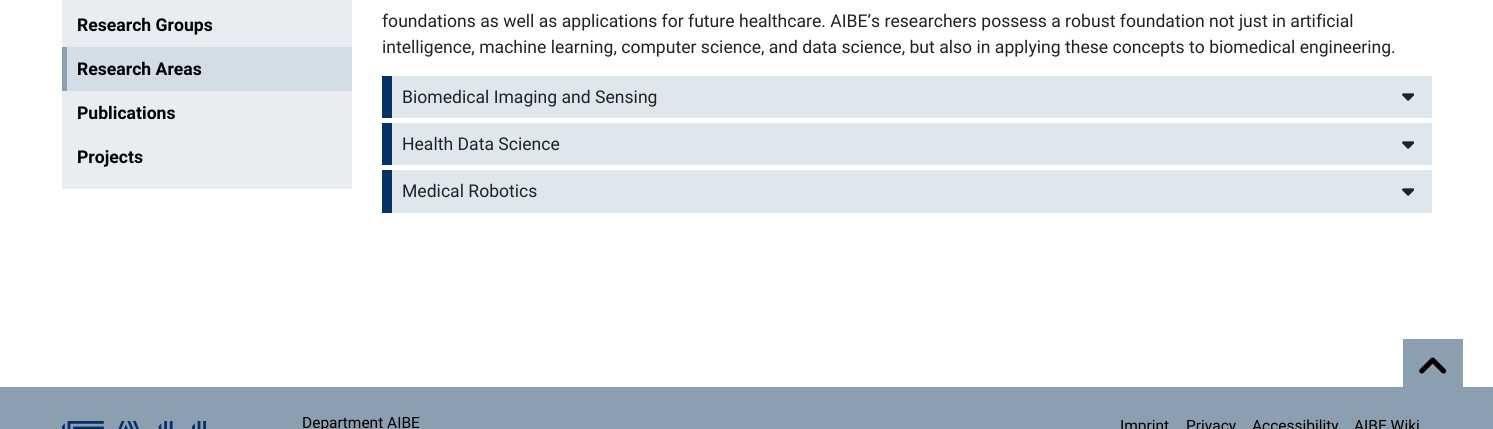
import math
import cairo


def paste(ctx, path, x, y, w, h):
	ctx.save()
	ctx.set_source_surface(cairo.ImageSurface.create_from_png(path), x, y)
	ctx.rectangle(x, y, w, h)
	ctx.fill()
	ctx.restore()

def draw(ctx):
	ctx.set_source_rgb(1, 1, 1)
	ctx.paint()
	ctx.set_source_rgb(0.914, 0.929, 0.949)
	ctx.rectangle(62, 0, 290, 189)
	ctx.fill()
	ctx.select_font_face('Roboto', cairo.FONT_SLANT_NORMAL, cairo.FONT_WEIGHT_BOLD)
	ctx.set_font_size(17.6)
	ctx.set_source_rgb(0, 0, 0)
	ctx.move_to(77, 31)
	ctx.show_text('Research Groups')
	ctx.set_source_rgb(0.827, 0.867, 0.902)
	ctx.rectangle(67, 47, 285, 44)
	ctx.fill()
	ctx.set_source_rgb(0.549, 0.624, 0.694)
	ctx.rectangle(62, 47, 5, 44)
	ctx.fill()
	ctx.select_font_face('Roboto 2', cairo.FONT_SLANT_NORMAL, cairo.FONT_WEIGHT_BOLD)
	ctx.set_source_rgb(0, 0, 0)
	ctx.move_to(77, 75)
	ctx.show_text('Research Areas')
	ctx.select_font_face('Roboto', cairo.FONT_SLANT_NORMAL, cairo.FONT_WEIGHT_BOLD)
	ctx.move_to(77, 119)
	ctx.show_text('Publications')
	ctx.move_to(77, 163)
	ctx.show_text('Projects')
	ctx.select_font_face('Roboto')
	ctx.set_source_rgb(0.133, 0.133, 0.133)
	ctx.move_to(382, 27)
	ctx.show_text('foundations as well as applications for future healthcare. AIBE’s researchers possess a robust foundation not just in artificial')
	ctx.move_to(382, 53)
	ctx.show_text('intelligence, machine learning, computer science, and data science, but also in applying these concepts to biomedical engineering.')
	ctx.set_source_rgb(0.875, 0.902, 0.925)
	ctx.rectangle(392, 76, 1040, 42)
	ctx.fill()
	ctx.set_source_rgb(0.016, 0.192, 0.416)
	ctx.rectangle(382, 76, 10, 42)
	ctx.fill()
	ctx.set_source_rgb(0.133, 0.133, 0.133)
	ctx.move_to(402, 103)
	ctx.show_text('Biomedical Imaging and Sensing')
	paste(ctx, 'media/1.png', 1402, 93, 12, 8)
	ctx.set_source_rgb(0.875, 0.902, 0.925)
	ctx.rectangle(392, 123, 1040, 42)
	ctx.fill()
	ctx.set_source_rgb(0.016, 0.192, 0.416)
	ctx.rectangle(382, 123, 10, 42)
	ctx.fill()
	ctx.set_source_rgb(0.133, 0.133, 0.133)
	ctx.move_to(402, 150)
	ctx.show_text('Health Data Science')
	paste(ctx, 'media/1.png', 1402, 141, 12, 8)
	ctx.set_source_rgb(0.875, 0.902, 0.925)
	ctx.rectangle(392, 170, 1040, 43)
	ctx.fill()
	ctx.set_source_rgb(0.016, 0.192, 0.416)
	ctx.rectangle(382, 170, 10, 43)
	ctx.fill()
	ctx.set_source_rgb(0.133, 0.133, 0.133)
	ctx.move_to(402, 197)
	ctx.show_text('Medical Robotics')
	paste(ctx, 'media/1.png', 1402, 188, 12, 8)
	ctx.set_source_rgb(0.549, 0.624, 0.694)
	ctx.rectangle(0, 387, 1493, 42)
	ctx.fill()
	ctx.rectangle(1403, 339, 60, 48)
	ctx.fill()
	paste(ctx, 'media/2.png', 1419, 357, 28, 17)
	paste(ctx, 'media/3.png', 62, 421, 144, 8)
	ctx.set_font_size(15.5)
	ctx.set_source_rgb(0, 0, 0)
	for x, y, s in [
		(302, 428, 'Department AIBE'),
		(1120, 431, 'Imprint'),
		(1186, 431, 'Privacy'),
		(1252, 431, 'Accessibility'),
		(1354, 431, 'AIBE Wiki'),
	]:
		ctx.move_to(x, y)
		ctx.show_text(s)


surface = cairo.ImageSurface(cairo.FORMAT_RGB24, 1493, 429)
ctx = cairo.Context(surface)
options = cairo.FontOptions()
options.set_hint_metrics(cairo.HINT_METRICS_OFF)
options.set_hint_style(cairo.HINT_STYLE_NONE)
ctx.set_font_options(options)
ctx.set_miter_limit(4)
draw(ctx)
surface.write_to_png('image.png')
